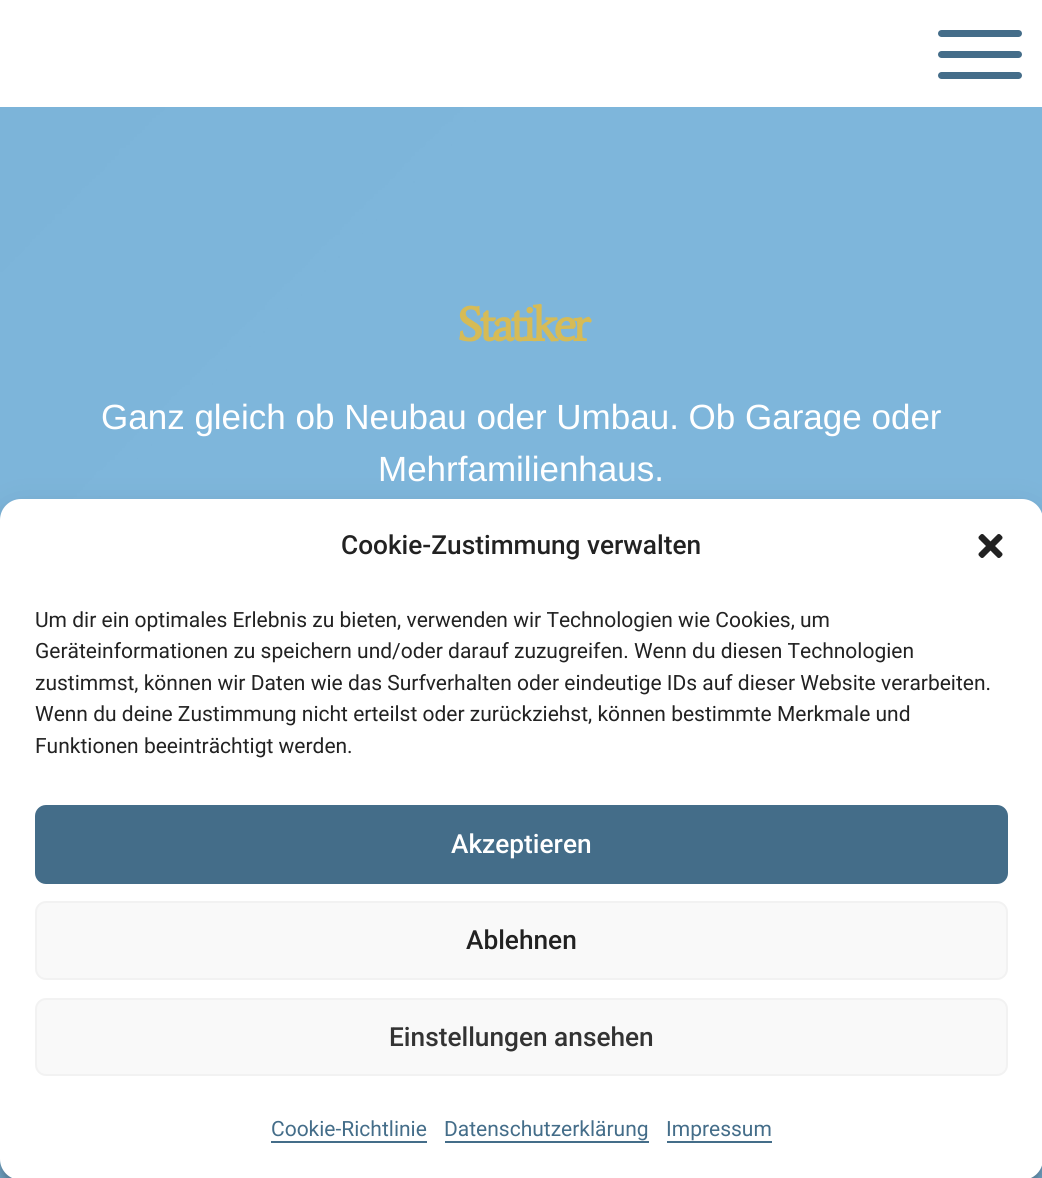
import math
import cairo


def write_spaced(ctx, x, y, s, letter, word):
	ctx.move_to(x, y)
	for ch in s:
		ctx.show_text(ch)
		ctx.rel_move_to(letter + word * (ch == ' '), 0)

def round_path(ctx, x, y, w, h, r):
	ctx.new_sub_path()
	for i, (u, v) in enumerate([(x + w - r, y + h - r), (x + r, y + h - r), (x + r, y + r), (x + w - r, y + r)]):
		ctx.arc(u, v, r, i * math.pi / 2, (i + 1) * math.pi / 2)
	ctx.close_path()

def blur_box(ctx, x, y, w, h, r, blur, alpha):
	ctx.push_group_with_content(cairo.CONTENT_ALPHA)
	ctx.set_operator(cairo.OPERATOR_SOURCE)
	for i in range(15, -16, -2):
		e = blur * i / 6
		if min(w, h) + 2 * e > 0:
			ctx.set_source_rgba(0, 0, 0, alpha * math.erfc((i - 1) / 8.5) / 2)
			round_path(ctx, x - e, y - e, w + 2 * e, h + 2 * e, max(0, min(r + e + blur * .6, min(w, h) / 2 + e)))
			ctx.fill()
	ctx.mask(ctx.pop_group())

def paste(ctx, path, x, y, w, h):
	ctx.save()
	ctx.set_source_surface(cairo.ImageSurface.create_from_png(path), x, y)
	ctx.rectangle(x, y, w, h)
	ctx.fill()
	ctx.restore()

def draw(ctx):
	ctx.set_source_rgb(1, 1, 1)
	ctx.paint()
	ctx.set_source_rgb(0.267, 0.427, 0.537)
	round_path(ctx, 938, 30, 84, 7, 3.5)
	ctx.fill()
	round_path(ctx, 938, 51, 84, 7, 3.5)
	ctx.fill()
	round_path(ctx, 938, 72, 84, 7, 3.5)
	ctx.fill()
	ctx.set_source_rgb(0.42, 0.671, 0.839)
	ctx.rectangle(0, 107, 1042, 1071)
	ctx.fill()
	paste(ctx, 'media/1.png', 0, 107, 1042, 1071)
	ctx.select_font_face('Average', cairo.FONT_SLANT_NORMAL, cairo.FONT_WEIGHT_BOLD)
	ctx.set_font_size(49)
	ctx.set_source_rgb(0.839, 0.733, 0.337)
	write_spaced(ctx, 457, 341, 'Statiker', -3.75, 0)
	ctx.select_font_face('Liberation Sans')
	ctx.set_font_size(35)
	ctx.set_source_rgb(1, 1, 1)
	ctx.move_to(101, 429)
	ctx.show_text('Ganz gleich ob Neubau oder Umbau. Ob Garage oder')
	ctx.move_to(378, 481)
	ctx.show_text('Mehrfamilienhaus.')
	ctx.set_source_rgb(0, 0, 0)
	blur_box(ctx, 0, 509, 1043, 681, 21, 5, 0.23)
	blur_box(ctx, 0, 516, 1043, 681, 21, 17.5, 0.19)
	ctx.set_source_rgb(1, 1, 1)
	round_path(ctx, 0, 499, 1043, 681, 21)
	ctx.fill()
	ctx.select_font_face('Roboto Medium')
	ctx.set_font_size(26.25)
	ctx.set_source_rgb(0.133, 0.133, 0.133)
	ctx.move_to(341, 554)
	ctx.show_text('Cookie-Zustimmung verwalten')
	paste(ctx, 'media/2.png', 978, 534, 25, 24)
	ctx.select_font_face('Roboto')
	ctx.set_font_size(21)
	for x, y, s in [
		(35, 627, 'Um dir ein optimales Erlebnis zu bieten, verwenden wir Technologien wie Cookies, um'),
		(35, 658, 'Geräteinformationen zu speichern und/oder darauf zuzugreifen. Wenn du diesen Technologien'),
		(35, 690, 'zustimmst, können wir Daten wie das Surfverhalten oder eindeutige IDs auf dieser Website verarbeiten.'),
		(35, 721, 'Wenn du deine Zustimmung nicht erteilst oder zurückziehst, können bestimmte Merkmale und'),
		(35, 753, 'Funktionen beeinträchtigt werden.'),
	]:
		ctx.move_to(x, y)
		ctx.show_text(s)
	ctx.set_source_rgb(0.267, 0.427, 0.537)
	round_path(ctx, 36, 806, 971, 77, 10)
	ctx.fill_preserve()
	ctx.stroke()
	ctx.select_font_face('Roboto Medium')
	ctx.set_font_size(26.25)
	ctx.set_source_rgb(1, 1, 1)
	ctx.move_to(451, 853)
	ctx.show_text('Akzeptieren')
	ctx.set_source_rgb(0.976, 0.976, 0.976)
	round_path(ctx, 36, 902, 971, 77, 10)
	ctx.fill_preserve()
	ctx.set_source_rgb(0.949, 0.949, 0.949)
	ctx.stroke()
	ctx.set_source_rgb(0.133, 0.133, 0.133)
	ctx.move_to(466, 949)
	ctx.show_text('Ablehnen')
	ctx.set_source_rgb(0.976, 0.976, 0.976)
	round_path(ctx, 36, 999, 971, 76, 10)
	ctx.fill_preserve()
	ctx.set_source_rgb(0.949, 0.949, 0.949)
	ctx.stroke()
	ctx.set_source_rgb(0.2, 0.2, 0.2)
	ctx.move_to(389, 1046)
	ctx.show_text('Einstellungen ansehen')
	ctx.select_font_face('Roboto')
	ctx.set_font_size(21)
	ctx.set_source_rgb(0.267, 0.427, 0.537)
	ctx.move_to(271, 1136)
	ctx.show_text('Cookie-Richtlinie')
	ctx.rectangle(271, 1141, 156, 2)
	ctx.fill()
	ctx.move_to(444, 1136)
	ctx.show_text('Datenschutzerklärung')
	ctx.rectangle(445, 1141, 204, 2)
	ctx.fill()
	ctx.move_to(666, 1136)
	ctx.show_text('Impressum')
	ctx.rectangle(667, 1141, 105, 2)
	ctx.fill()


surface = cairo.ImageSurface(cairo.FORMAT_RGB24, 1042, 1178)
ctx = cairo.Context(surface)
options = cairo.FontOptions()
options.set_hint_metrics(cairo.HINT_METRICS_OFF)
options.set_hint_style(cairo.HINT_STYLE_NONE)
ctx.set_font_options(options)
ctx.set_miter_limit(4)
draw(ctx)
surface.write_to_png('image.png')
